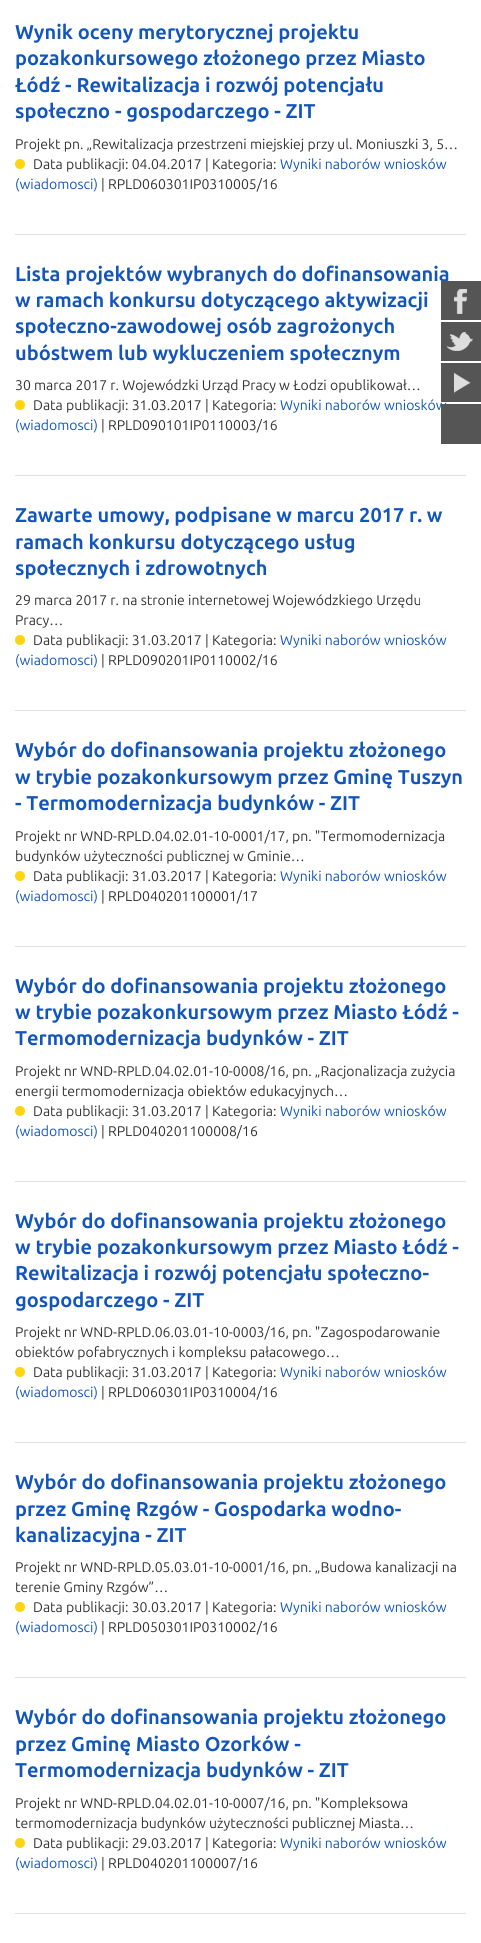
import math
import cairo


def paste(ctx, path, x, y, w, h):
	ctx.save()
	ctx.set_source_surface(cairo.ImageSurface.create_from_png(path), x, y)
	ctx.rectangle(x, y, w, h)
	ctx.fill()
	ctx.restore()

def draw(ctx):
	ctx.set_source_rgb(1, 1, 1)
	ctx.paint()
	ctx.set_source_rgb(0.882, 0.882, 0.882)
	ctx.rectangle(15, 234, 451, 1)
	ctx.fill()
	ctx.select_font_face('Ubuntu', cairo.FONT_SLANT_NORMAL, cairo.FONT_WEIGHT_BOLD)
	ctx.set_font_size(20)
	ctx.set_source_rgb(0.071, 0.337, 0.733)
	for x, y, s in [
		(15, 39, 'Wynik oceny merytorycznej projektu'),
		(15, 65, 'pozakonkursowego złożonego przez Miasto'),
		(15, 92, 'Łódź - Rewitalizacja i rozwój potencjału'),
		(15, 118, 'społeczno - gospodarczego - ZIT'),
	]:
		ctx.move_to(x, y)
		ctx.show_text(s)
	ctx.select_font_face('Ubuntu')
	ctx.set_font_size(14)
	ctx.set_source_rgb(0.2, 0.2, 0.2)
	ctx.move_to(15, 149)
	ctx.show_text('Projekt pn. „Rewitalizacja przestrzeni miejskiej przy ul. Moniuszki 3, 5…')
	ctx.set_source_rgb(1, 0.835, 0.078)
	ctx.new_path()
	ctx.arc(20, 164, 5, 0, 2 * math.pi)
	ctx.fill()
	ctx.set_source_rgb(0.2, 0.2, 0.2)
	ctx.move_to(33, 169)
	ctx.show_text('Data publikacji: 04.04.2017 | Kategoria:')
	ctx.set_source_rgb(0.071, 0.337, 0.733)
	ctx.move_to(280, 169)
	ctx.show_text('Wyniki naborów wniosków')
	ctx.move_to(15, 189)
	ctx.show_text('(wiadomosci)')
	ctx.set_source_rgb(0.2, 0.2, 0.2)
	ctx.move_to(101, 189)
	ctx.show_text('| RPLD060301IP0310005/16')
	ctx.set_source_rgb(0.882, 0.882, 0.882)
	ctx.rectangle(15, 475, 451, 1)
	ctx.fill()
	ctx.select_font_face('Ubuntu', cairo.FONT_SLANT_NORMAL, cairo.FONT_WEIGHT_BOLD)
	ctx.set_font_size(20)
	ctx.set_source_rgb(0.071, 0.337, 0.733)
	for x, y, s in [
		(15, 281, 'Lista projektów wybranych do dofinansowania'),
		(15, 307, 'w ramach konkursu dotyczącego aktywizacji'),
		(15, 333, 'społeczno-zawodowej osób zagrożonych'),
		(15, 360, 'ubóstwem lub wykluczeniem społecznym'),
	]:
		ctx.move_to(x, y)
		ctx.show_text(s)
	ctx.select_font_face('Ubuntu')
	ctx.set_font_size(14)
	ctx.set_source_rgb(0.2, 0.2, 0.2)
	ctx.move_to(15, 390)
	ctx.show_text('30 marca 2017 r. Wojewódzki Urząd Pracy w Łodzi opublikował…')
	ctx.set_source_rgb(1, 0.835, 0.078)
	ctx.new_path()
	ctx.arc(20, 405, 5, 0, 2 * math.pi)
	ctx.fill()
	ctx.set_source_rgb(0.2, 0.2, 0.2)
	ctx.move_to(33, 410)
	ctx.show_text('Data publikacji: 31.03.2017 | Kategoria:')
	ctx.set_source_rgb(0.071, 0.337, 0.733)
	ctx.move_to(280, 410)
	ctx.show_text('Wyniki naborów wniosków')
	ctx.move_to(15, 430)
	ctx.show_text('(wiadomosci)')
	ctx.set_source_rgb(0.2, 0.2, 0.2)
	ctx.move_to(101, 430)
	ctx.show_text('| RPLD090101IP0110003/16')
	ctx.set_source_rgb(0.882, 0.882, 0.882)
	ctx.rectangle(15, 710, 451, 1)
	ctx.fill()
	ctx.select_font_face('Ubuntu', cairo.FONT_SLANT_NORMAL, cairo.FONT_WEIGHT_BOLD)
	ctx.set_font_size(20)
	ctx.set_source_rgb(0.071, 0.337, 0.733)
	for x, y, s in [
		(15, 522, 'Zawarte umowy, podpisane w marcu 2017 r. w'),
		(15, 549, 'ramach konkursu dotyczącego usług'),
		(15, 575, 'społecznych i zdrowotnych'),
	]:
		ctx.move_to(x, y)
		ctx.show_text(s)
	ctx.select_font_face('Ubuntu')
	ctx.set_font_size(14)
	ctx.set_source_rgb(0.2, 0.2, 0.2)
	ctx.move_to(15, 605)
	ctx.show_text('29 marca 2017 r. na stronie internetowej Wojewódzkiego Urzędu')
	ctx.move_to(15, 625)
	ctx.show_text('Pracy…')
	ctx.set_source_rgb(1, 0.835, 0.078)
	ctx.new_path()
	ctx.arc(20, 640, 5, 0, 2 * math.pi)
	ctx.fill()
	ctx.set_source_rgb(0.2, 0.2, 0.2)
	ctx.move_to(33, 645)
	ctx.show_text('Data publikacji: 31.03.2017 | Kategoria:')
	ctx.set_source_rgb(0.071, 0.337, 0.733)
	ctx.move_to(280, 645)
	ctx.show_text('Wyniki naborów wniosków')
	ctx.move_to(15, 665)
	ctx.show_text('(wiadomosci)')
	ctx.set_source_rgb(0.2, 0.2, 0.2)
	ctx.move_to(101, 665)
	ctx.show_text('| RPLD090201IP0110002/16')
	ctx.set_source_rgb(0.882, 0.882, 0.882)
	ctx.rectangle(15, 946, 451, 1)
	ctx.fill()
	ctx.select_font_face('Ubuntu', cairo.FONT_SLANT_NORMAL, cairo.FONT_WEIGHT_BOLD)
	ctx.set_font_size(20)
	ctx.set_source_rgb(0.071, 0.337, 0.733)
	for x, y, s in [
		(15, 757, 'Wybór do dofinansowania projektu złożonego'),
		(15, 784, 'w trybie pozakonkursowym przez Gminę Tuszyn'),
		(15, 810, '- Termomodernizacja budynków - ZIT'),
	]:
		ctx.move_to(x, y)
		ctx.show_text(s)
	ctx.select_font_face('Ubuntu')
	ctx.set_font_size(14)
	ctx.set_source_rgb(0.2, 0.2, 0.2)
	ctx.move_to(15, 841)
	ctx.show_text('Projekt nr WND-RPLD.04.02.01-10-0001/17, pn. "Termomodernizacja')
	ctx.move_to(15, 861)
	ctx.show_text('budynków użyteczności publicznej w Gminie…')
	ctx.set_source_rgb(1, 0.835, 0.078)
	ctx.new_path()
	ctx.arc(20, 876, 5, 0, 2 * math.pi)
	ctx.fill()
	ctx.set_source_rgb(0.2, 0.2, 0.2)
	ctx.move_to(33, 881)
	ctx.show_text('Data publikacji: 31.03.2017 | Kategoria:')
	ctx.set_source_rgb(0.071, 0.337, 0.733)
	ctx.move_to(280, 881)
	ctx.show_text('Wyniki naborów wniosków')
	ctx.move_to(15, 901)
	ctx.show_text('(wiadomosci)')
	ctx.set_source_rgb(0.2, 0.2, 0.2)
	ctx.move_to(101, 901)
	ctx.show_text('| RPLD040201100001/17')
	ctx.set_source_rgb(0.882, 0.882, 0.882)
	ctx.rectangle(15, 1181, 451, 1)
	ctx.fill()
	ctx.select_font_face('Ubuntu', cairo.FONT_SLANT_NORMAL, cairo.FONT_WEIGHT_BOLD)
	ctx.set_font_size(20)
	ctx.set_source_rgb(0.071, 0.337, 0.733)
	for x, y, s in [
		(15, 993, 'Wybór do dofinansowania projektu złożonego'),
		(15, 1019, 'w trybie pozakonkursowym przez Miasto Łódź -'),
		(15, 1045, 'Termomodernizacja budynków - ZIT'),
	]:
		ctx.move_to(x, y)
		ctx.show_text(s)
	ctx.select_font_face('Ubuntu')
	ctx.set_font_size(14)
	ctx.set_source_rgb(0.2, 0.2, 0.2)
	ctx.move_to(15, 1076)
	ctx.show_text('Projekt nr WND-RPLD.04.02.01-10-0008/16, pn. „Racjonalizacja zużycia')
	ctx.move_to(15, 1096)
	ctx.show_text('energii termomodernizacja obiektów edukacyjnych…')
	ctx.set_source_rgb(1, 0.835, 0.078)
	ctx.new_path()
	ctx.arc(20, 1111, 5, 0, 2 * math.pi)
	ctx.fill()
	ctx.set_source_rgb(0.2, 0.2, 0.2)
	ctx.move_to(33, 1116)
	ctx.show_text('Data publikacji: 31.03.2017 | Kategoria:')
	ctx.set_source_rgb(0.071, 0.337, 0.733)
	ctx.move_to(280, 1116)
	ctx.show_text('Wyniki naborów wniosków')
	ctx.move_to(15, 1136)
	ctx.show_text('(wiadomosci)')
	ctx.set_source_rgb(0.2, 0.2, 0.2)
	ctx.move_to(101, 1136)
	ctx.show_text('| RPLD040201100008/16')
	ctx.set_source_rgb(0.882, 0.882, 0.882)
	ctx.rectangle(15, 1442, 451, 1)
	ctx.fill()
	ctx.select_font_face('Ubuntu', cairo.FONT_SLANT_NORMAL, cairo.FONT_WEIGHT_BOLD)
	ctx.set_font_size(20)
	ctx.set_source_rgb(0.071, 0.337, 0.733)
	for x, y, s in [
		(15, 1228, 'Wybór do dofinansowania projektu złożonego'),
		(15, 1254, 'w trybie pozakonkursowym przez Miasto Łódź -'),
		(15, 1280, 'Rewitalizacja i rozwój potencjału społeczno-'),
		(15, 1307, 'gospodarczego - ZIT'),
	]:
		ctx.move_to(x, y)
		ctx.show_text(s)
	ctx.select_font_face('Ubuntu')
	ctx.set_font_size(14)
	ctx.set_source_rgb(0.2, 0.2, 0.2)
	ctx.move_to(15, 1337)
	ctx.show_text('Projekt nr WND-RPLD.06.03.01-10-0003/16, pn. "Zagospodarowanie')
	ctx.move_to(15, 1357)
	ctx.show_text('obiektów pofabrycznych i kompleksu pałacowego…')
	ctx.set_source_rgb(1, 0.835, 0.078)
	ctx.new_path()
	ctx.arc(20, 1372, 5, 0, 2 * math.pi)
	ctx.fill()
	ctx.set_source_rgb(0.2, 0.2, 0.2)
	ctx.move_to(33, 1377)
	ctx.show_text('Data publikacji: 31.03.2017 | Kategoria:')
	ctx.set_source_rgb(0.071, 0.337, 0.733)
	ctx.move_to(280, 1377)
	ctx.show_text('Wyniki naborów wniosków')
	ctx.move_to(15, 1397)
	ctx.show_text('(wiadomosci)')
	ctx.set_source_rgb(0.2, 0.2, 0.2)
	ctx.move_to(101, 1397)
	ctx.show_text('| RPLD060301IP0310004/16')
	ctx.set_source_rgb(0.882, 0.882, 0.882)
	ctx.rectangle(15, 1677, 451, 1)
	ctx.fill()
	ctx.select_font_face('Ubuntu', cairo.FONT_SLANT_NORMAL, cairo.FONT_WEIGHT_BOLD)
	ctx.set_font_size(20)
	ctx.set_source_rgb(0.071, 0.337, 0.733)
	for x, y, s in [
		(15, 1489, 'Wybór do dofinansowania projektu złożonego'),
		(15, 1516, 'przez Gminę Rzgów - Gospodarka wodno-'),
		(15, 1542, 'kanalizacyjna - ZIT'),
	]:
		ctx.move_to(x, y)
		ctx.show_text(s)
	ctx.select_font_face('Ubuntu')
	ctx.set_font_size(14)
	ctx.set_source_rgb(0.2, 0.2, 0.2)
	ctx.move_to(15, 1572)
	ctx.show_text('Projekt nr WND-RPLD.05.03.01-10-0001/16, pn. „Budowa kanalizacji na')
	ctx.move_to(15, 1592)
	ctx.show_text('terenie Gminy Rzgów”…')
	ctx.set_source_rgb(1, 0.835, 0.078)
	ctx.new_path()
	ctx.arc(20, 1607, 5, 0, 2 * math.pi)
	ctx.fill()
	ctx.set_source_rgb(0.2, 0.2, 0.2)
	ctx.move_to(33, 1612)
	ctx.show_text('Data publikacji: 30.03.2017 | Kategoria:')
	ctx.set_source_rgb(0.071, 0.337, 0.733)
	ctx.move_to(280, 1612)
	ctx.show_text('Wyniki naborów wniosków')
	ctx.move_to(15, 1632)
	ctx.show_text('(wiadomosci)')
	ctx.set_source_rgb(0.2, 0.2, 0.2)
	ctx.move_to(101, 1632)
	ctx.show_text('| RPLD050301IP0310002/16')
	ctx.set_source_rgb(0.882, 0.882, 0.882)
	ctx.rectangle(15, 1913, 451, 1)
	ctx.fill()
	ctx.select_font_face('Ubuntu', cairo.FONT_SLANT_NORMAL, cairo.FONT_WEIGHT_BOLD)
	ctx.set_font_size(20)
	ctx.set_source_rgb(0.071, 0.337, 0.733)
	for x, y, s in [
		(15, 1724, 'Wybór do dofinansowania projektu złożonego'),
		(15, 1751, 'przez Gminę Miasto Ozorków -'),
		(15, 1777, 'Termomodernizacja budynków - ZIT'),
	]:
		ctx.move_to(x, y)
		ctx.show_text(s)
	ctx.select_font_face('Ubuntu')
	ctx.set_font_size(14)
	ctx.set_source_rgb(0.2, 0.2, 0.2)
	ctx.move_to(15, 1808)
	ctx.show_text('Projekt nr WND-RPLD.04.02.01-10-0007/16, pn. "Kompleksowa')
	ctx.move_to(15, 1828)
	ctx.show_text('termomodernizacja budynków użyteczności publicznej Miasta…')
	ctx.set_source_rgb(1, 0.835, 0.078)
	ctx.new_path()
	ctx.arc(20, 1843, 5, 0, 2 * math.pi)
	ctx.fill()
	ctx.set_source_rgb(0.2, 0.2, 0.2)
	ctx.move_to(33, 1848)
	ctx.show_text('Data publikacji: 29.03.2017 | Kategoria:')
	ctx.set_source_rgb(0.071, 0.337, 0.733)
	ctx.move_to(280, 1848)
	ctx.show_text('Wyniki naborów wniosków')
	ctx.move_to(15, 1868)
	ctx.show_text('(wiadomosci)')
	ctx.set_source_rgb(0.2, 0.2, 0.2)
	ctx.move_to(101, 1868)
	ctx.show_text('| RPLD040201100007/16')
	ctx.set_source_rgb(0.333, 0.333, 0.333)
	ctx.rectangle(441, 281, 40, 39)
	ctx.fill()
	paste(ctx, 'media/1.png', 454, 289, 13, 25)
	ctx.rectangle(441, 322, 40, 39)
	ctx.fill()
	paste(ctx, 'media/2.png', 447, 332, 26, 19)
	ctx.rectangle(441, 363, 40, 39)
	ctx.fill()
	paste(ctx, 'media/3.png', 454, 372, 17, 22)
	ctx.rectangle(441, 404, 40, 40)
	ctx.fill()


surface = cairo.ImageSurface(cairo.FORMAT_RGB24, 481, 1943)
ctx = cairo.Context(surface)
options = cairo.FontOptions()
options.set_hint_metrics(cairo.HINT_METRICS_OFF)
options.set_hint_style(cairo.HINT_STYLE_NONE)
ctx.set_font_options(options)
ctx.set_miter_limit(4)
draw(ctx)
surface.write_to_png('image.png')
